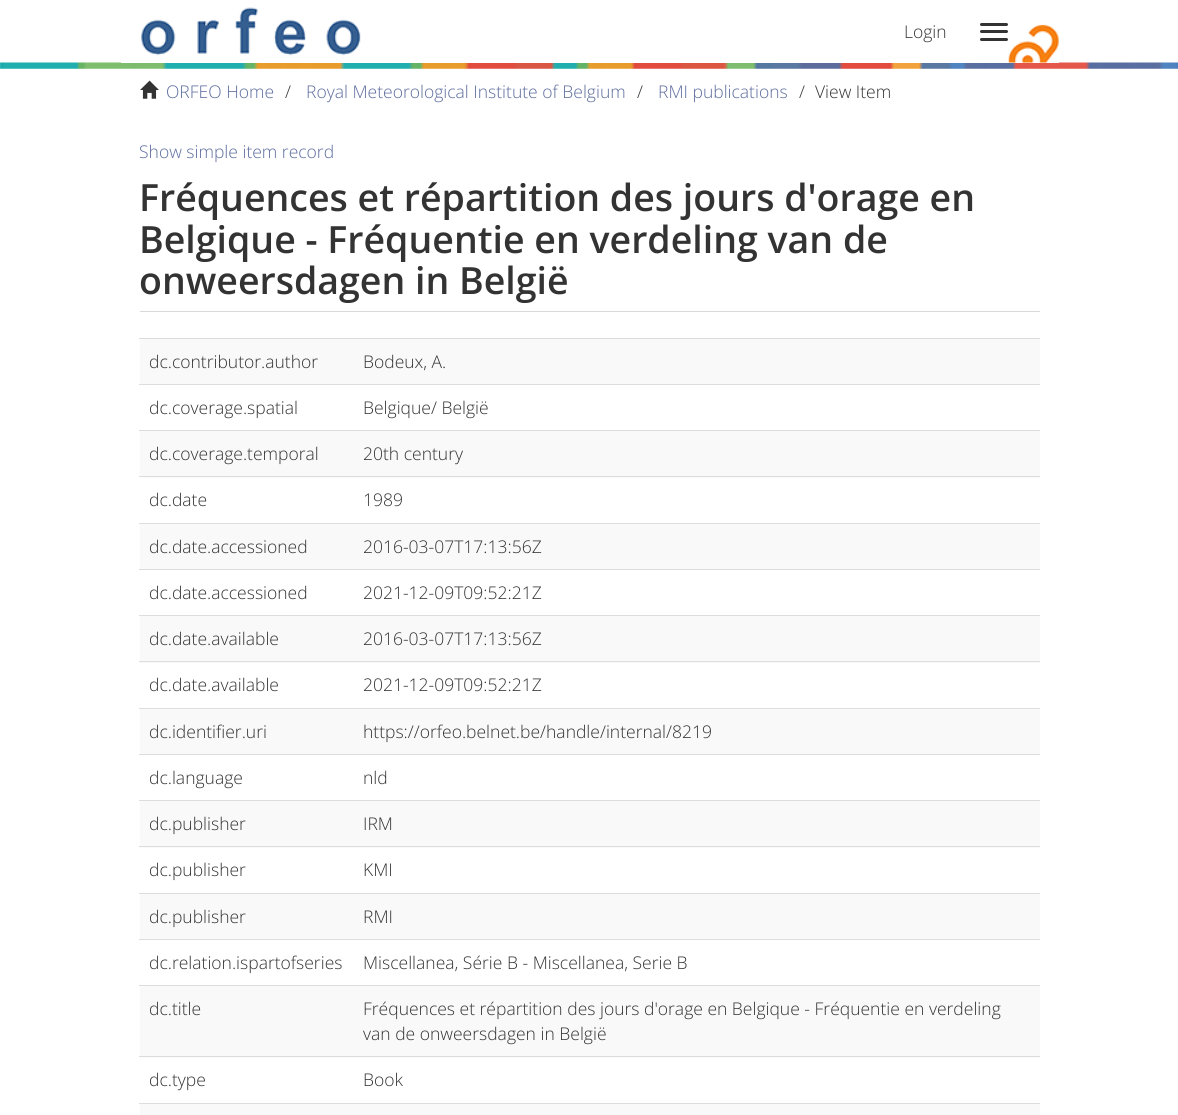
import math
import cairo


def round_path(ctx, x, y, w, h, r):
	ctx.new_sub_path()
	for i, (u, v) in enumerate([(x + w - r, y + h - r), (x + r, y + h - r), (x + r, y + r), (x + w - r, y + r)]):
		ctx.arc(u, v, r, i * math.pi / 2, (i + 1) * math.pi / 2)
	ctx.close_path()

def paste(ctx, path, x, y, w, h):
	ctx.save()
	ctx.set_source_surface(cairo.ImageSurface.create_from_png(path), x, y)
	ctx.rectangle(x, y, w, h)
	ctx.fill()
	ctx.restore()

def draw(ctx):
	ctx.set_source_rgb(1, 1, 1)
	ctx.paint()
	paste(ctx, 'media/3.png', 0, 62, 1178, 7)
	ctx.set_source_rgb(1, 1, 1)
	ctx.rectangle(121, 62, 938, 1)
	ctx.fill()
	paste(ctx, 'media/1.png', 1008, 24, 51, 39)
	paste(ctx, 'media/2.png', 141, 7, 220, 49)
	ctx.select_font_face('Open Sans Light')
	ctx.set_font_size(17.5)
	ctx.set_source_rgb(0.2, 0.2, 0.2)
	ctx.move_to(904, 38)
	ctx.show_text('Login')
	round_path(ctx, 980, 23, 28, 3, 1.5)
	ctx.fill()
	round_path(ctx, 980, 30, 28, 3, 1.5)
	ctx.fill()
	round_path(ctx, 980, 38, 28, 3, 1.5)
	ctx.fill()
	paste(ctx, 'media/4.png', 140, 80, 19, 19)
	ctx.set_source_rgb(0.361, 0.424, 0.616)
	ctx.move_to(166, 98)
	ctx.show_text('ORFEO Home')
	ctx.set_source_rgb(0.2, 0.2, 0.2)
	ctx.move_to(285, 98)
	ctx.show_text('/')
	ctx.set_source_rgb(0.361, 0.424, 0.616)
	ctx.move_to(306, 98)
	ctx.show_text('Royal Meteorological Institute of Belgium')
	ctx.set_source_rgb(0.2, 0.2, 0.2)
	ctx.move_to(637, 98)
	ctx.show_text('/')
	ctx.set_source_rgb(0.361, 0.424, 0.616)
	ctx.move_to(658, 98)
	ctx.show_text('RMI publications')
	ctx.set_source_rgb(0.2, 0.2, 0.2)
	ctx.move_to(799, 98)
	ctx.show_text('/')
	ctx.move_to(815, 98)
	ctx.show_text('View Item')
	ctx.set_source_rgb(0.361, 0.424, 0.616)
	ctx.move_to(139, 158)
	ctx.show_text('Show simple item record')
	ctx.set_source_rgb(0.851, 0.851, 0.851)
	ctx.rectangle(140, 311, 900, 1)
	ctx.fill()
	ctx.select_font_face('Open Sans SemiBold')
	ctx.set_font_size(37.5)
	ctx.set_source_rgb(0.2, 0.2, 0.2)
	for x, y, s in [
		(139, 211, 'Fréquences et répartition des jours d\'orage en'),
		(139, 253, 'Belgique - Fréquentie en verdeling van de'),
		(139, 294, 'onweersdagen in België'),
	]:
		ctx.move_to(x, y)
		ctx.show_text(s)
	ctx.set_source_rgb(0.976, 0.976, 0.976)
	ctx.rectangle(140, 339, 900, 45)
	ctx.fill()
	ctx.set_source_rgb(0.867, 0.867, 0.867)
	ctx.rectangle(139, 338, 901, 1)
	ctx.fill()
	ctx.select_font_face('Open Sans Light')
	ctx.set_font_size(17.5)
	ctx.set_source_rgb(0.2, 0.2, 0.2)
	ctx.move_to(149, 368)
	ctx.show_text('dc.contributor.author')
	ctx.move_to(363, 368)
	ctx.show_text('Bodeux, A.')
	ctx.set_source_rgb(0.867, 0.867, 0.867)
	ctx.rectangle(139, 384, 901, 1)
	ctx.fill()
	ctx.set_source_rgb(0.2, 0.2, 0.2)
	ctx.move_to(149, 414)
	ctx.show_text('dc.coverage.spatial')
	ctx.move_to(363, 414)
	ctx.show_text('Belgique/ België')
	ctx.set_source_rgb(0.976, 0.976, 0.976)
	ctx.rectangle(140, 431, 900, 47)
	ctx.fill()
	ctx.set_source_rgb(0.867, 0.867, 0.867)
	ctx.rectangle(139, 430, 901, 1)
	ctx.fill()
	ctx.set_source_rgb(0.2, 0.2, 0.2)
	ctx.move_to(149, 460)
	ctx.show_text('dc.coverage.temporal')
	ctx.move_to(363, 460)
	ctx.show_text('20th century')
	ctx.set_source_rgb(0.867, 0.867, 0.867)
	ctx.rectangle(139, 476, 901, 1)
	ctx.fill()
	ctx.set_source_rgb(0.2, 0.2, 0.2)
	ctx.move_to(149, 506)
	ctx.show_text('dc.date')
	ctx.move_to(363, 506)
	ctx.show_text('1989')
	ctx.set_source_rgb(0.976, 0.976, 0.976)
	ctx.rectangle(140, 524, 900, 45)
	ctx.fill()
	ctx.set_source_rgb(0.867, 0.867, 0.867)
	ctx.rectangle(139, 523, 901, 1)
	ctx.fill()
	ctx.set_source_rgb(0.2, 0.2, 0.2)
	ctx.move_to(149, 553)
	ctx.show_text('dc.date.accessioned')
	ctx.move_to(363, 553)
	ctx.show_text('2016-03-07T17:13:56Z')
	ctx.set_source_rgb(0.867, 0.867, 0.867)
	ctx.rectangle(139, 569, 901, 1)
	ctx.fill()
	ctx.set_source_rgb(0.2, 0.2, 0.2)
	ctx.move_to(149, 599)
	ctx.show_text('dc.date.accessioned')
	ctx.move_to(363, 599)
	ctx.show_text('2021-12-09T09:52:21Z')
	ctx.set_source_rgb(0.976, 0.976, 0.976)
	ctx.rectangle(140, 616, 900, 47)
	ctx.fill()
	ctx.set_source_rgb(0.867, 0.867, 0.867)
	ctx.rectangle(139, 615, 901, 1)
	ctx.fill()
	ctx.set_source_rgb(0.2, 0.2, 0.2)
	ctx.move_to(149, 645)
	ctx.show_text('dc.date.available')
	ctx.move_to(363, 645)
	ctx.show_text('2016-03-07T17:13:56Z')
	ctx.set_source_rgb(0.867, 0.867, 0.867)
	ctx.rectangle(139, 661, 901, 1)
	ctx.fill()
	ctx.set_source_rgb(0.2, 0.2, 0.2)
	ctx.move_to(149, 691)
	ctx.show_text('dc.date.available')
	ctx.move_to(363, 691)
	ctx.show_text('2021-12-09T09:52:21Z')
	ctx.set_source_rgb(0.976, 0.976, 0.976)
	ctx.rectangle(140, 709, 900, 45)
	ctx.fill()
	ctx.set_source_rgb(0.867, 0.867, 0.867)
	ctx.rectangle(139, 708, 901, 1)
	ctx.fill()
	ctx.set_source_rgb(0.2, 0.2, 0.2)
	ctx.move_to(149, 738)
	ctx.show_text('dc.identifier.uri')
	ctx.move_to(363, 738)
	ctx.show_text('https://orfeo.belnet.be/handle/internal/8219')
	ctx.set_source_rgb(0.867, 0.867, 0.867)
	ctx.rectangle(139, 754, 901, 1)
	ctx.fill()
	ctx.set_source_rgb(0.2, 0.2, 0.2)
	ctx.move_to(149, 784)
	ctx.show_text('dc.language')
	ctx.move_to(363, 784)
	ctx.show_text('nld')
	ctx.set_source_rgb(0.976, 0.976, 0.976)
	ctx.rectangle(140, 801, 900, 47)
	ctx.fill()
	ctx.set_source_rgb(0.867, 0.867, 0.867)
	ctx.rectangle(139, 800, 901, 1)
	ctx.fill()
	ctx.set_source_rgb(0.2, 0.2, 0.2)
	ctx.move_to(149, 830)
	ctx.show_text('dc.publisher')
	ctx.move_to(363, 830)
	ctx.show_text('IRM')
	ctx.set_source_rgb(0.867, 0.867, 0.867)
	ctx.rectangle(139, 846, 901, 1)
	ctx.fill()
	ctx.set_source_rgb(0.2, 0.2, 0.2)
	ctx.move_to(149, 876)
	ctx.show_text('dc.publisher')
	ctx.move_to(363, 876)
	ctx.show_text('KMI')
	ctx.set_source_rgb(0.976, 0.976, 0.976)
	ctx.rectangle(140, 894, 900, 45)
	ctx.fill()
	ctx.set_source_rgb(0.867, 0.867, 0.867)
	ctx.rectangle(139, 893, 901, 1)
	ctx.fill()
	ctx.set_source_rgb(0.2, 0.2, 0.2)
	ctx.move_to(149, 923)
	ctx.show_text('dc.publisher')
	ctx.move_to(363, 923)
	ctx.show_text('RMI')
	ctx.set_source_rgb(0.867, 0.867, 0.867)
	ctx.rectangle(139, 939, 901, 1)
	ctx.fill()
	ctx.set_source_rgb(0.2, 0.2, 0.2)
	ctx.move_to(149, 969)
	ctx.show_text('dc.relation.ispartofseries')
	ctx.move_to(363, 969)
	ctx.show_text('Miscellanea, Série B - Miscellanea, Serie B')
	ctx.set_source_rgb(0.976, 0.976, 0.976)
	ctx.rectangle(140, 986, 900, 72)
	ctx.fill()
	ctx.set_source_rgb(0.867, 0.867, 0.867)
	ctx.rectangle(139, 985, 901, 1)
	ctx.fill()
	ctx.set_source_rgb(0.2, 0.2, 0.2)
	for x, y, s in [
		(149, 1015, 'dc.title'),
		(363, 1015, 'Fréquences et répartition des jours d\'orage en Belgique - Fréquentie en verdeling'),
		(363, 1040, 'van de onweersdagen in België'),
	]:
		ctx.move_to(x, y)
		ctx.show_text(s)
	ctx.set_source_rgb(0.867, 0.867, 0.867)
	ctx.rectangle(139, 1056, 901, 1)
	ctx.fill()
	ctx.set_source_rgb(0.2, 0.2, 0.2)
	ctx.move_to(149, 1086)
	ctx.show_text('dc.type')
	ctx.move_to(363, 1086)
	ctx.show_text('Book')
	ctx.set_source_rgb(0.976, 0.976, 0.976)
	ctx.rectangle(140, 1104, 900, 11)
	ctx.fill()
	ctx.set_source_rgb(0.867, 0.867, 0.867)
	ctx.rectangle(139, 1103, 901, 1)
	ctx.fill()


surface = cairo.ImageSurface(cairo.FORMAT_RGB24, 1178, 1115)
ctx = cairo.Context(surface)
options = cairo.FontOptions()
options.set_hint_metrics(cairo.HINT_METRICS_OFF)
options.set_hint_style(cairo.HINT_STYLE_NONE)
ctx.set_font_options(options)
ctx.set_miter_limit(4)
draw(ctx)
surface.write_to_png('image.png')
